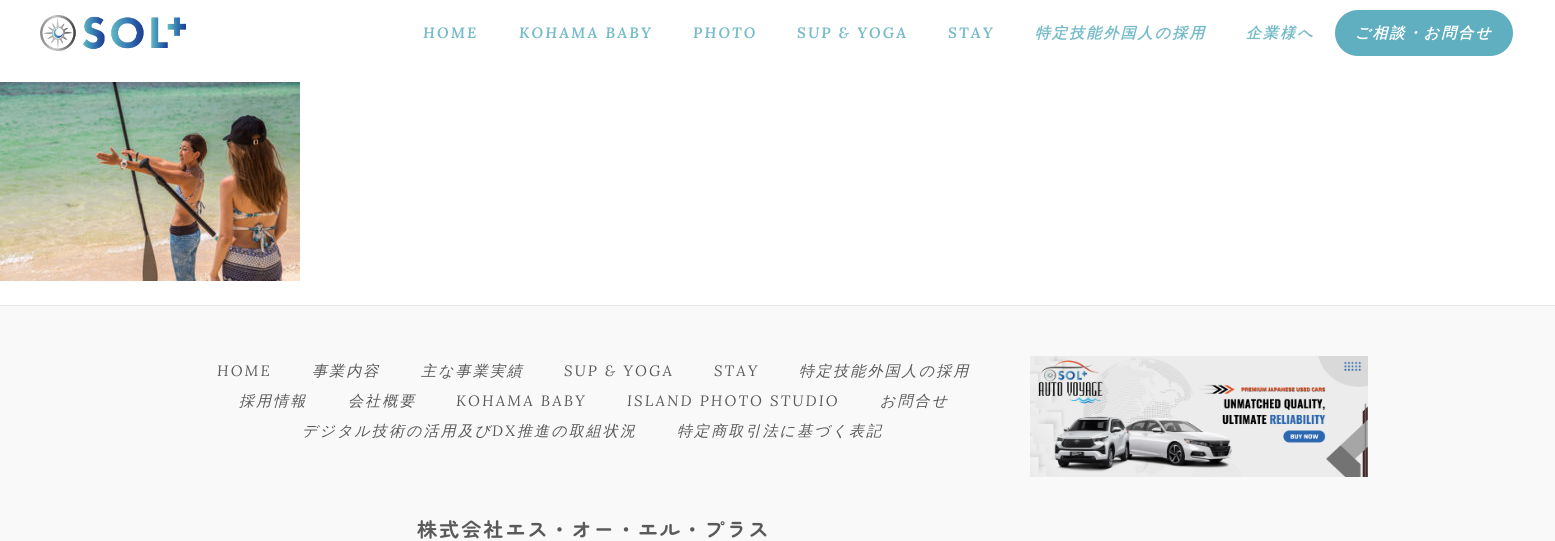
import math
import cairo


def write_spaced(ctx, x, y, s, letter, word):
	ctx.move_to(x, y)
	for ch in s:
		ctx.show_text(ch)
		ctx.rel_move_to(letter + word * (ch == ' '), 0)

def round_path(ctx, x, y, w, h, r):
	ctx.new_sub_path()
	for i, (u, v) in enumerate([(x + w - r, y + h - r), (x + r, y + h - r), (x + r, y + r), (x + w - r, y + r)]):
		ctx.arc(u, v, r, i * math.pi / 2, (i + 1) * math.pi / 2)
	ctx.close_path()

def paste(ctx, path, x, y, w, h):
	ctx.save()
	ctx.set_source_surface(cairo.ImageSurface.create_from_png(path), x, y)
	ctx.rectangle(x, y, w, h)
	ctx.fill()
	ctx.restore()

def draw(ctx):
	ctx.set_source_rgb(1, 1, 1)
	ctx.paint()
	paste(ctx, 'media/1.png', 40, 15, 146, 36)
	ctx.select_font_face('Lora SemiBold', cairo.FONT_SLANT_ITALIC)
	ctx.set_font_size(15)
	ctx.set_source_rgb(0.463, 0.733, 0.788)
	for x, y, s in [
		(423, 38, 'HOME'),
		(519, 38, 'KOHAMA BABY'),
		(693, 38, 'PHOTO'),
		(797, 38, 'SUP & YOGA'),
		(948, 38, 'STAY'),
	]:
		write_spaced(ctx, x, y, s, 2.1, 0)
	ctx.select_font_face('WenQuanYi Zen Hei', cairo.FONT_SLANT_ITALIC, cairo.FONT_WEIGHT_BOLD)
	write_spaced(ctx, 1035, 38, '特定技能外国人の採用', 2.1, 0)
	write_spaced(ctx, 1246, 38, '企業様へ', 2.1, 0)
	ctx.set_source_rgb(0.376, 0.686, 0.757)
	round_path(ctx, 1335, 10, 178, 46, 23)
	ctx.fill()
	ctx.set_source_rgb(1, 1, 1)
	write_spaced(ctx, 1355, 38, 'ご相談・お問合せ', 2.1, 0)
	paste(ctx, 'media/2.png', 0, 82, 300, 199)
	ctx.set_source_rgb(0.976, 0.976, 0.976)
	ctx.rectangle(0, 306, 1555, 235)
	ctx.fill()
	ctx.set_source_rgb(0.906, 0.906, 0.906)
	ctx.rectangle(0, 305, 1555, 1)
	ctx.fill()
	ctx.select_font_face('Lora', cairo.FONT_SLANT_ITALIC)
	ctx.set_source_rgb(0.353, 0.353, 0.353)
	write_spaced(ctx, 217, 376, 'HOME', 2.1, 0)
	ctx.select_font_face('WenQuanYi Zen Hei Medium', cairo.FONT_SLANT_ITALIC)
	write_spaced(ctx, 312, 376, '事業内容', 2.1, 0)
	write_spaced(ctx, 421, 376, '主な事業実績', 2.1, 0)
	ctx.select_font_face('Lora', cairo.FONT_SLANT_ITALIC)
	write_spaced(ctx, 564, 376, 'SUP & YOGA', 2.1, 0)
	write_spaced(ctx, 714, 376, 'STAY', 2.1, 0)
	ctx.select_font_face('WenQuanYi Zen Hei Medium', cairo.FONT_SLANT_ITALIC)
	for x, y, s in [
		(799, 376, '特定技能外国人の採用'),
		(239, 406, '採用情報'),
		(348, 406, '会社概要'),
	]:
		write_spaced(ctx, x, y, s, 2.1, 0)
	ctx.select_font_face('Lora', cairo.FONT_SLANT_ITALIC)
	write_spaced(ctx, 456, 406, 'KOHAMA BABY', 2.1, 0)
	write_spaced(ctx, 627, 406, 'ISLAND PHOTO STUDIO', 2.1, 0)
	ctx.select_font_face('WenQuanYi Zen Hei Medium', cairo.FONT_SLANT_ITALIC)
	write_spaced(ctx, 880, 406, 'お問合せ', 2.1, 0)
	write_spaced(ctx, 302, 436, 'デジタル技術の活用及び', 2.1, 0)
	ctx.select_font_face('Lora', cairo.FONT_SLANT_ITALIC)
	write_spaced(ctx, 492, 436, 'DX', 2.1, 0)
	ctx.select_font_face('WenQuanYi Zen Hei Medium', cairo.FONT_SLANT_ITALIC)
	write_spaced(ctx, 517, 436, '推進の取組状況', 2.1, 0)
	write_spaced(ctx, 677, 436, '特定商取引法に基づく表記', 2.1, 0)
	ctx.select_font_face('Zen Maru Gothic', cairo.FONT_SLANT_NORMAL, cairo.FONT_WEIGHT_BOLD)
	ctx.set_font_size(20)
	write_spaced(ctx, 417, 537, '株式会社エス・オー・エル・プラス', 2.1, 0)
	paste(ctx, 'media/3.png', 1030, 356, 338, 121)


surface = cairo.ImageSurface(cairo.FORMAT_RGB24, 1555, 541)
ctx = cairo.Context(surface)
options = cairo.FontOptions()
options.set_hint_metrics(cairo.HINT_METRICS_OFF)
options.set_hint_style(cairo.HINT_STYLE_NONE)
ctx.set_font_options(options)
ctx.set_miter_limit(4)
draw(ctx)
surface.write_to_png('image.png')
